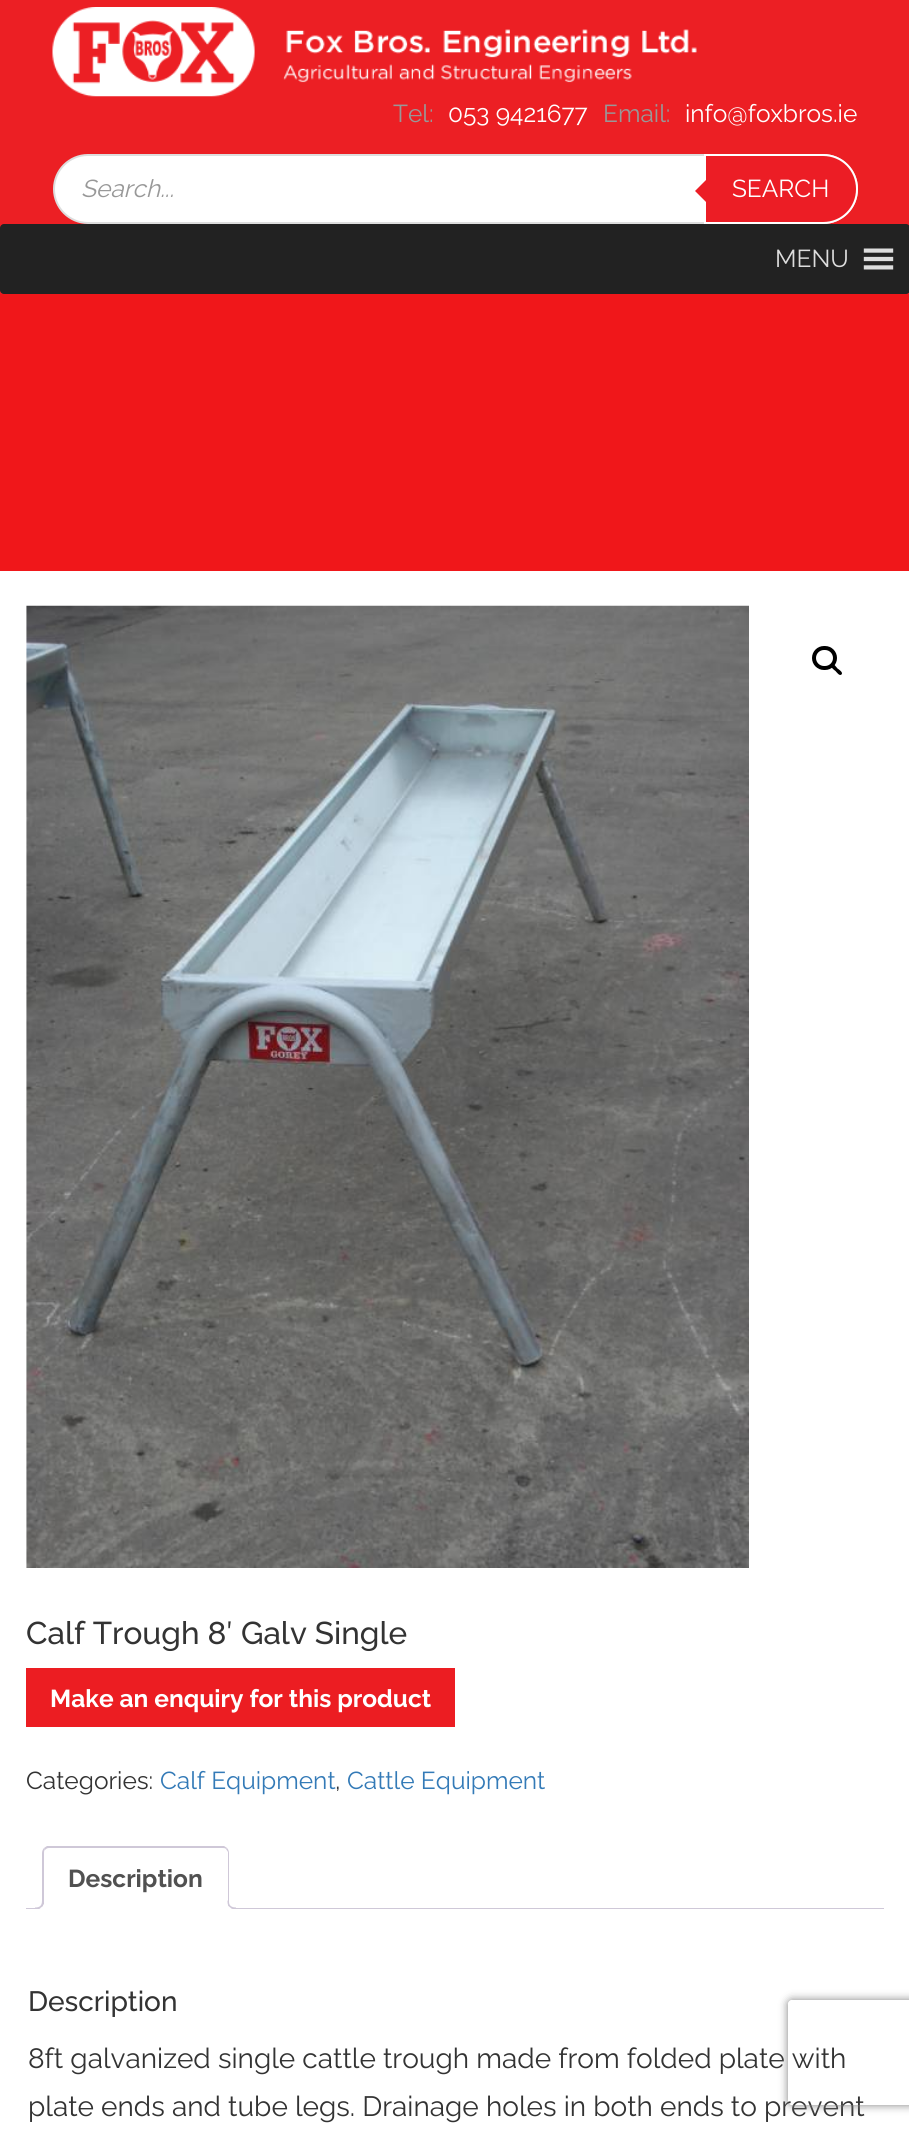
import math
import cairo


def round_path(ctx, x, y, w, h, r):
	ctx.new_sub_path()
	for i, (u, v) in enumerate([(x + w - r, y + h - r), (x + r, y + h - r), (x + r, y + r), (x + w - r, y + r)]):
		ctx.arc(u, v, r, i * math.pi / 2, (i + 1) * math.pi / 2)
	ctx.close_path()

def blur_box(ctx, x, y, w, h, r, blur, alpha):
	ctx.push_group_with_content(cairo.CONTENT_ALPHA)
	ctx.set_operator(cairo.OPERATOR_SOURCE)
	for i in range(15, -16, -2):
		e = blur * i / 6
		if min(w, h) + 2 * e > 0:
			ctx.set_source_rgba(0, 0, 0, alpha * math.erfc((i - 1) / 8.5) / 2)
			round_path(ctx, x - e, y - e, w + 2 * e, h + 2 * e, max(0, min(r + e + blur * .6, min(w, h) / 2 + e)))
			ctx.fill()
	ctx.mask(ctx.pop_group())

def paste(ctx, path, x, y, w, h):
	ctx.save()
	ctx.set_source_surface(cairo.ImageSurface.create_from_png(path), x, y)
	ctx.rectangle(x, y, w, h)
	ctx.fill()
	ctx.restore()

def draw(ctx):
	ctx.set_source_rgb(1, 1, 1)
	ctx.paint()
	ctx.set_source_rgb(0.922, 0.122, 0.141)
	ctx.rectangle(0, 0, 909, 294)
	ctx.fill()
	paste(ctx, 'media/1.png', 52, 7, 645, 90)
	ctx.select_font_face('Raleway')
	ctx.set_font_size(24.5)
	ctx.set_source_rgb(0.596, 0.596, 0.596)
	ctx.move_to(393, 122)
	ctx.show_text('Tel:')
	ctx.set_source_rgb(1, 1, 1)
	ctx.move_to(448, 122)
	ctx.show_text('053 9421677')
	ctx.set_source_rgb(0.596, 0.596, 0.596)
	ctx.move_to(603, 122)
	ctx.show_text('Email:')
	ctx.set_source_rgb(1, 1, 1)
	ctx.move_to(685, 122)
	ctx.show_text('info@foxbros.ie')
	round_path(ctx, 54, 155, 803, 68, 34)
	ctx.fill_preserve()
	ctx.set_source_rgb(0.867, 0.867, 0.867)
	ctx.stroke()
	ctx.select_font_face('Raleway', cairo.FONT_SLANT_ITALIC)
	ctx.set_source_rgb(0.596, 0.596, 0.596)
	ctx.move_to(81, 197)
	ctx.show_text('Search...')
	ctx.set_source_rgb(0.922, 0.114, 0.145)
	ctx.new_path()
	ctx.move_to(705, 155)
	ctx.line_to(823, 155)
	ctx.curve_to(842, 155, 857, 170, 857, 189)
	ctx.curve_to(857, 208, 842, 223, 823, 223)
	ctx.line_to(705, 223)
	ctx.close_path()
	ctx.fill_preserve()
	ctx.set_source_rgb(1, 1, 1)
	ctx.stroke()
	ctx.set_source_rgb(0.922, 0.114, 0.145)
	ctx.new_path()
	ctx.move_to(709, 177)
	ctx.line_to(709, 205)
	ctx.line_to(695, 191)
	ctx.close_path()
	ctx.fill()
	ctx.select_font_face('Raleway')
	ctx.set_source_rgb(1, 1, 1)
	ctx.move_to(732, 197)
	ctx.show_text('SEARCH')
	ctx.set_source_rgb(0.133, 0.133, 0.133)
	round_path(ctx, 0, 224, 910, 70, 4)
	ctx.fill()
	ctx.set_source_rgb(0.867, 0.867, 0.867)
	ctx.move_to(775, 267)
	ctx.show_text('MENU')
	paste(ctx, 'media/2.png', 863, 248, 31, 22)
	ctx.set_source_rgb(0.941, 0.09, 0.102)
	ctx.rectangle(0, 294, 909, 277)
	ctx.fill()
	paste(ctx, 'media/3.png', 26, 605, 723, 963)
	round_path(ctx, 814, 648, 21, 20, 10)
	ctx.set_source_rgb(0, 0, 0)
	ctx.set_line_width(4)
	ctx.stroke()
	ctx.new_path()
	ctx.move_to(831.5, 664.5)
	ctx.curve_to(833.5, 662.5, 836.5, 667.5, 837.5, 668.5)
	ctx.curve_to(839, 669.5, 843.5, 672.5, 841.5, 674.5)
	ctx.curve_to(839.5, 676.5, 836.5, 672, 835.5, 671)
	ctx.curve_to(834, 670, 829.5, 666.5, 831.5, 664.5)
	ctx.close_path()
	ctx.fill()
	ctx.select_font_face('Raleway Medium')
	ctx.set_font_size(31.5)
	ctx.set_source_rgb(0.2, 0.2, 0.2)
	ctx.move_to(26, 1644)
	ctx.show_text('Calf Trough 8′ Galv Single')
	ctx.set_source_rgb(0.925, 0.114, 0.133)
	ctx.rectangle(26, 1668, 429, 59)
	ctx.fill()
	ctx.select_font_face('Raleway', cairo.FONT_SLANT_NORMAL, cairo.FONT_WEIGHT_BOLD)
	ctx.set_font_size(24.5)
	ctx.set_source_rgb(1, 1, 1)
	ctx.move_to(50, 1707)
	ctx.show_text('Make an enquiry for this product')
	ctx.select_font_face('Raleway')
	ctx.set_source_rgb(0.2, 0.2, 0.2)
	ctx.move_to(26, 1789)
	ctx.show_text('Categories:')
	ctx.set_source_rgb(0.2, 0.478, 0.718)
	ctx.move_to(160, 1789)
	ctx.show_text('Calf Equipment')
	ctx.set_source_rgb(0.2, 0.2, 0.2)
	ctx.move_to(335, 1789)
	ctx.show_text(',')
	ctx.set_source_rgb(0.2, 0.478, 0.718)
	ctx.move_to(347, 1789)
	ctx.show_text('Cattle Equipment')
	ctx.set_source_rgb(0.812, 0.784, 0.847)
	ctx.rectangle(26, 1908, 858, 1)
	ctx.fill()
	ctx.set_source_rgb(1, 1, 1)
	ctx.new_path()
	ctx.move_to(49, 1846)
	ctx.line_to(222, 1846)
	ctx.curve_to(226, 1846, 229, 1849, 229, 1853)
	ctx.line_to(229, 1909)
	ctx.line_to(42, 1909)
	ctx.line_to(42, 1853)
	ctx.curve_to(42, 1849, 45, 1846, 49, 1846)
	ctx.close_path()
	ctx.fill()
	ctx.set_source_rgb(0.812, 0.784, 0.847)
	ctx.new_path()
	ctx.move_to(49, 1848)
	ctx.curve_to(47, 1848, 46, 1849, 45, 1850)
	ctx.line_to(44, 1848)
	ctx.line_to(47, 1846)
	ctx.line_to(224, 1846)
	ctx.line_to(227, 1848)
	ctx.line_to(226, 1849)
	ctx.curve_to(225, 1848, 224, 1848, 222, 1848)
	ctx.close_path()
	ctx.fill()
	ctx.new_path()
	ctx.move_to(227, 1848)
	ctx.curve_to(228, 1849, 229, 1851, 229, 1853)
	ctx.line_to(229, 1909)
	ctx.line_to(228, 1908)
	ctx.line_to(228, 1852)
	ctx.line_to(226, 1849)
	ctx.close_path()
	ctx.fill()
	ctx.set_source_rgb(1, 1, 1)
	ctx.new_path()
	ctx.move_to(229, 1909)
	ctx.line_to(228, 1908)
	ctx.line_to(44, 1908)
	ctx.line_to(44, 1907)
	ctx.line_to(42, 1909)
	ctx.close_path()
	ctx.fill()
	ctx.set_source_rgb(0.812, 0.784, 0.847)
	ctx.new_path()
	ctx.move_to(42, 1853)
	ctx.line_to(42, 1909)
	ctx.line_to(44, 1907)
	ctx.line_to(44, 1853)
	ctx.curve_to(44, 1852, 44, 1850, 45, 1850)
	ctx.line_to(44, 1848)
	ctx.curve_to(43, 1849, 42, 1851, 42, 1853)
	ctx.close_path()
	ctx.fill()
	ctx.select_font_face('Raleway', cairo.FONT_SLANT_NORMAL, cairo.FONT_WEIGHT_BOLD)
	ctx.set_source_rgb(0.318, 0.318, 0.318)
	ctx.move_to(68, 1887)
	ctx.show_text('Description')
	ctx.save()
	ctx.rectangle(26, 1846, 858, 63)
	ctx.clip()
	ctx.set_source_rgb(1, 1, 1)
	ctx.new_path()
	ctx.move_to(39, 1909)
	ctx.line_to(39, 1913)
	ctx.curve_to(45, 1913, 47, 1909.5, 47, 1904)
	ctx.line_to(43.5, 1904)
	ctx.curve_to(43, 1906.5, 41, 1908, 39, 1909)
	ctx.close_path()
	ctx.fill()
	ctx.restore()
	ctx.set_source_rgb(0.812, 0.784, 0.847)
	ctx.set_fill_rule(cairo.FILL_RULE_EVEN_ODD)
	ctx.new_path()
	ctx.move_to(35, 1900.5)
	ctx.line_to(44, 1900.5)
	ctx.curve_to(44, 1906.5, 41, 1909, 35, 1909)
	ctx.close_path()
	ctx.move_to(35, 1900.5)
	ctx.line_to(42, 1900.5)
	ctx.curve_to(42, 1905.5, 40, 1907.5, 35, 1907.5)
	ctx.close_path()
	ctx.fill()
	ctx.save()
	ctx.set_fill_rule(cairo.FILL_RULE_WINDING)
	ctx.rectangle(26, 1846, 858, 63)
	ctx.clip()
	ctx.set_source_rgb(1, 1, 1)
	ctx.new_path()
	ctx.move_to(224, 1904)
	ctx.curve_to(224, 1910.5, 226.5, 1913, 233, 1913)
	ctx.line_to(233, 1909)
	ctx.curve_to(230.5, 1908.5, 228.5, 1906.5, 227.5, 1904)
	ctx.close_path()
	ctx.fill()
	ctx.restore()
	ctx.new_path()
	ctx.move_to(227.5, 1900.5)
	ctx.line_to(236, 1900.5)
	ctx.line_to(236, 1909)
	ctx.curve_to(232, 1909, 227.5, 1907.5, 227.5, 1902)
	ctx.close_path()
	ctx.move_to(229, 1900.5)
	ctx.line_to(236, 1900.5)
	ctx.line_to(236, 1907.5)
	ctx.curve_to(233, 1907.5, 229, 1906.5, 229, 1902)
	ctx.close_path()
	ctx.fill()
	ctx.select_font_face('Raleway Medium')
	ctx.set_font_size(28)
	ctx.set_source_rgb(0.2, 0.2, 0.2)
	ctx.move_to(28, 2011)
	ctx.show_text('Description')
	ctx.select_font_face('Raleway')
	ctx.move_to(28, 2068)
	ctx.show_text('8ft galvanized single cattle trough made from folded plate with')
	ctx.move_to(28, 2116)
	ctx.show_text('plate ends and tube legs. Drainage holes in both ends to prevent')
	ctx.save()
	ctx.new_path()
	ctx.move_to(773, 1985)
	ctx.line_to(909, 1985)
	ctx.line_to(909, 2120)
	ctx.line_to(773, 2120)
	ctx.close_path()
	ctx.move_to(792, 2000)
	ctx.line_to(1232, 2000)
	ctx.curve_to(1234, 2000, 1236, 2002, 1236, 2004)
	ctx.line_to(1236, 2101)
	ctx.curve_to(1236, 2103, 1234, 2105, 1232, 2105)
	ctx.line_to(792, 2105)
	ctx.curve_to(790, 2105, 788, 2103, 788, 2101)
	ctx.line_to(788, 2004)
	ctx.curve_to(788, 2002, 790, 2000, 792, 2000)
	ctx.close_path()
	ctx.clip()
	ctx.set_source_rgb(0.502, 0.502, 0.502)
	blur_box(ctx, 788, 2000, 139, 105, 4, 4.5, 1)
	ctx.restore()


surface = cairo.ImageSurface(cairo.FORMAT_RGB24, 909, 2129)
ctx = cairo.Context(surface)
options = cairo.FontOptions()
options.set_hint_metrics(cairo.HINT_METRICS_OFF)
options.set_hint_style(cairo.HINT_STYLE_NONE)
ctx.set_font_options(options)
ctx.set_miter_limit(4)
draw(ctx)
surface.write_to_png('image.png')
